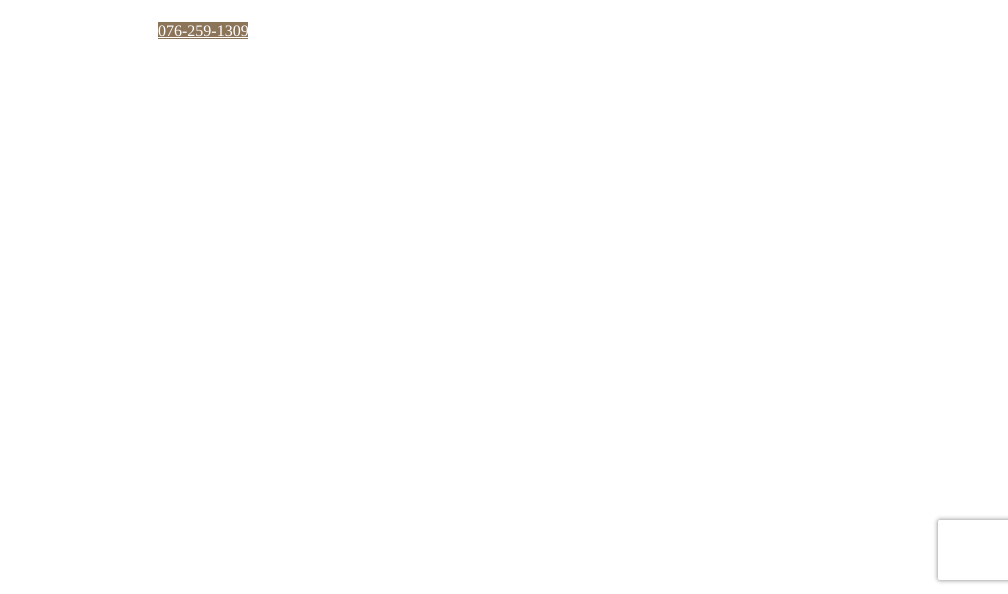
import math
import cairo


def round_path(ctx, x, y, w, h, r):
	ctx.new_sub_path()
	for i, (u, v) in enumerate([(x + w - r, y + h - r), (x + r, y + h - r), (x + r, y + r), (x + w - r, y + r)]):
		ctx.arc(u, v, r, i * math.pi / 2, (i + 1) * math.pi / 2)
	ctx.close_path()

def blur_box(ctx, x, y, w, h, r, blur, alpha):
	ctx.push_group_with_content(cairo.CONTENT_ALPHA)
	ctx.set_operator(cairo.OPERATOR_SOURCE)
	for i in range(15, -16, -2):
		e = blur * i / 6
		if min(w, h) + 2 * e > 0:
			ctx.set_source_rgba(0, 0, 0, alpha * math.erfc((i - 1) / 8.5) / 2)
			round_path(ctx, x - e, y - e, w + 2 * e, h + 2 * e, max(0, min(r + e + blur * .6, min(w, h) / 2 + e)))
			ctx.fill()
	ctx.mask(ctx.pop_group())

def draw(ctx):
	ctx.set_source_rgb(1, 1, 1)
	ctx.paint()
	ctx.set_source_rgb(0.549, 0.455, 0.349)
	ctx.rectangle(158, 22, 90, 17)
	ctx.fill()
	ctx.select_font_face('Liberation Serif')
	ctx.set_font_size(16)
	ctx.set_source_rgb(1, 1, 1)
	ctx.move_to(158, 36)
	ctx.show_text('076-259-1309')
	ctx.rectangle(158, 37, 90, 1)
	ctx.fill()
	ctx.save()
	ctx.set_fill_rule(cairo.FILL_RULE_EVEN_ODD)
	ctx.new_path()
	ctx.move_to(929, 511)
	ctx.line_to(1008, 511)
	ctx.line_to(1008, 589)
	ctx.line_to(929, 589)
	ctx.close_path()
	ctx.move_to(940, 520)
	ctx.line_to(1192, 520)
	ctx.curve_to(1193, 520, 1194, 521, 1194, 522)
	ctx.line_to(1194, 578)
	ctx.curve_to(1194, 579, 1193, 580, 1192, 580)
	ctx.line_to(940, 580)
	ctx.curve_to(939, 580, 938, 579, 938, 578)
	ctx.line_to(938, 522)
	ctx.curve_to(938, 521, 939, 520, 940, 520)
	ctx.close_path()
	ctx.clip()
	ctx.set_source_rgb(0.502, 0.502, 0.502)
	blur_box(ctx, 938, 520, 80, 60, 2, 2.5, 1)
	ctx.restore()


surface = cairo.ImageSurface(cairo.FORMAT_RGB24, 1008, 594)
ctx = cairo.Context(surface)
options = cairo.FontOptions()
options.set_hint_metrics(cairo.HINT_METRICS_OFF)
options.set_hint_style(cairo.HINT_STYLE_NONE)
ctx.set_font_options(options)
ctx.set_miter_limit(4)
draw(ctx)
surface.write_to_png('image.png')
